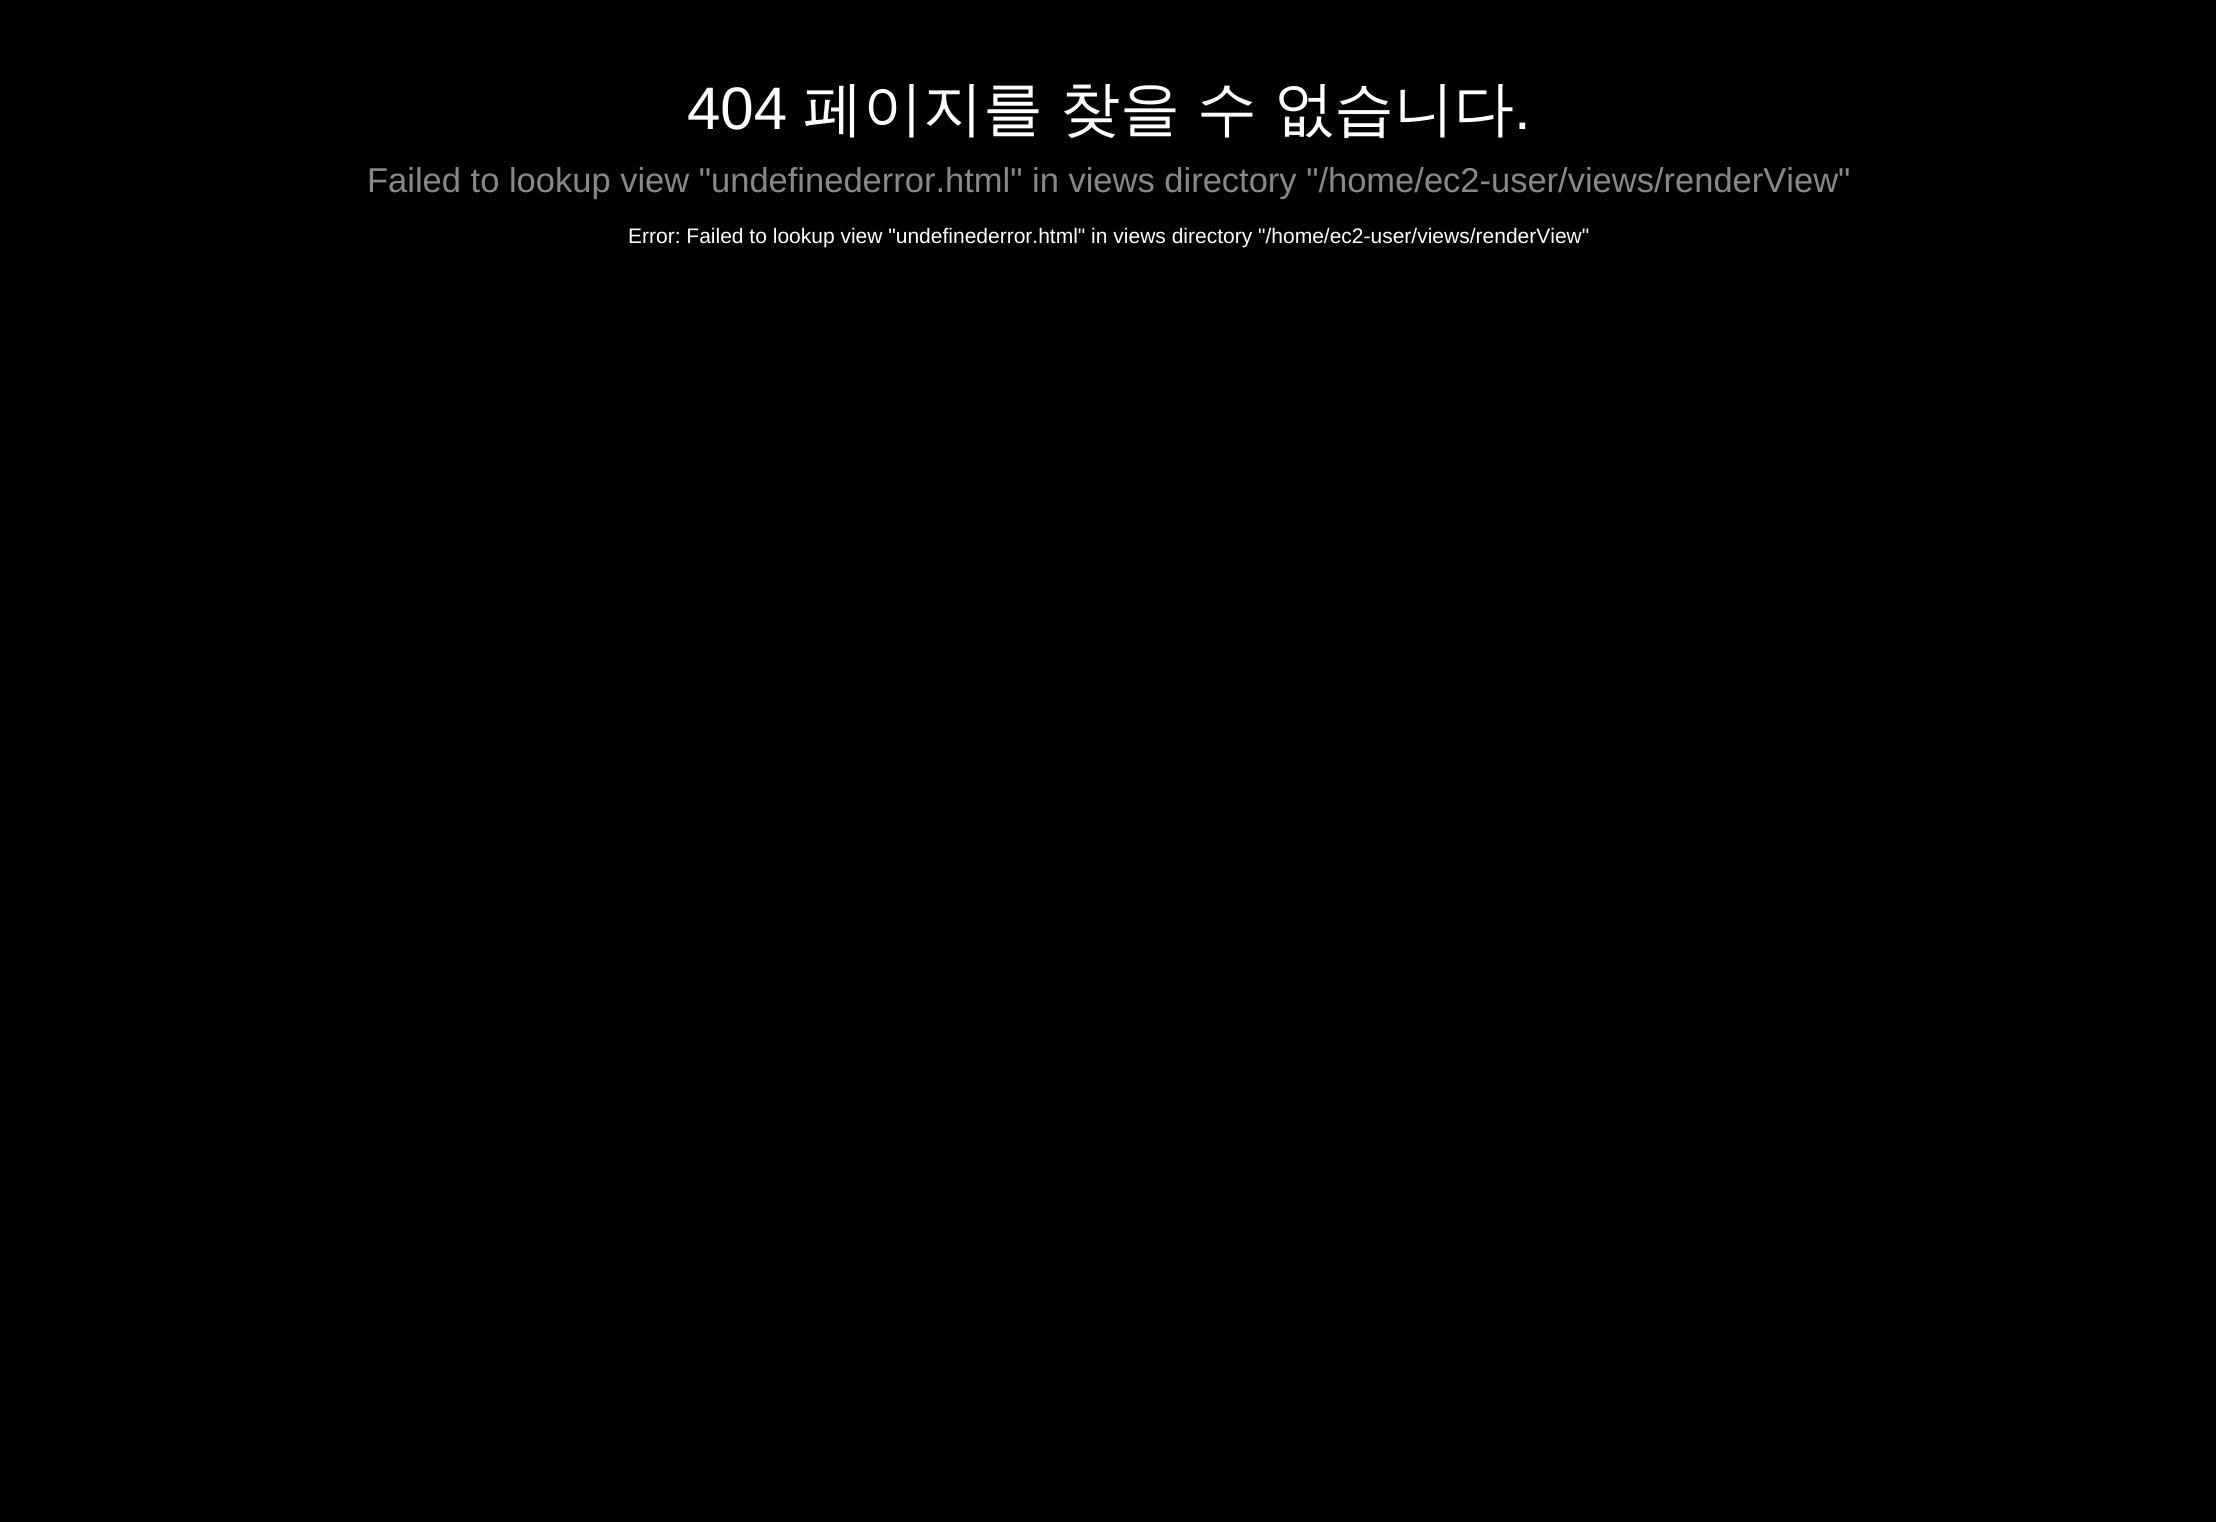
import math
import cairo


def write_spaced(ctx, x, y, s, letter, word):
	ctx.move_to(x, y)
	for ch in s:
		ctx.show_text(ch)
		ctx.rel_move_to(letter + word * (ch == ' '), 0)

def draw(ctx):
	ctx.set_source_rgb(0, 0, 0)
	ctx.paint()
	ctx.select_font_face('Liberation Sans')
	ctx.set_font_size(60)
	ctx.set_source_rgb(1, 1, 1)
	ctx.move_to(687, 129)
	ctx.show_text('404')
	ctx.select_font_face('WenQuanYi Zen Hei Medium')
	write_spaced(ctx, 803, 129, '페이지를 찾을 수 없습니다', 0, -1)
	ctx.select_font_face('Liberation Sans')
	ctx.move_to(1514, 129)
	ctx.show_text('.')
	ctx.set_font_size(34.5)
	ctx.set_source_rgb(0.533, 0.533, 0.533)
	ctx.move_to(367, 192)
	ctx.show_text('Failed to lookup view "undefinederror.html" in views directory "/home/ec2-user/views/renderView"')
	ctx.set_font_size(21)
	ctx.set_source_rgb(1, 1, 1)
	ctx.move_to(628, 243)
	ctx.show_text('Error: Failed to lookup view "undefinederror.html" in views directory "/home/ec2-user/views/renderView"')


surface = cairo.ImageSurface(cairo.FORMAT_RGB24, 2216, 1522)
ctx = cairo.Context(surface)
options = cairo.FontOptions()
options.set_hint_metrics(cairo.HINT_METRICS_OFF)
options.set_hint_style(cairo.HINT_STYLE_NONE)
ctx.set_font_options(options)
ctx.set_miter_limit(4)
draw(ctx)
surface.write_to_png('image.png')
